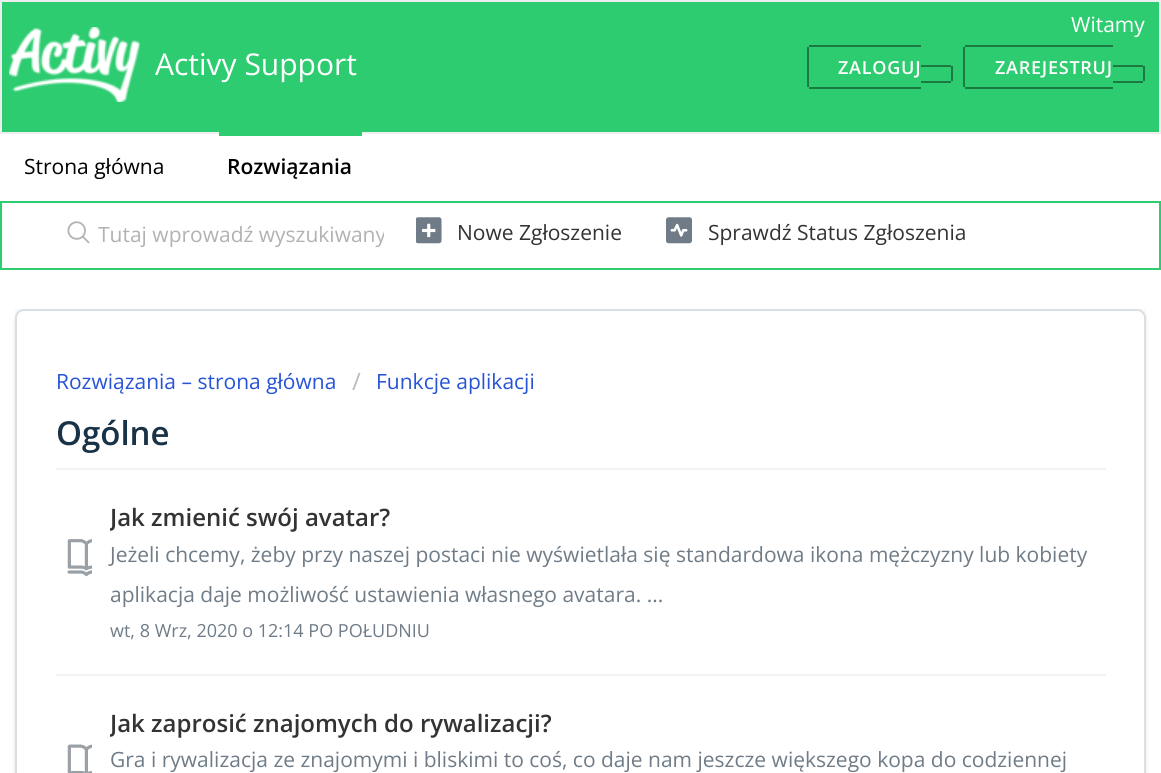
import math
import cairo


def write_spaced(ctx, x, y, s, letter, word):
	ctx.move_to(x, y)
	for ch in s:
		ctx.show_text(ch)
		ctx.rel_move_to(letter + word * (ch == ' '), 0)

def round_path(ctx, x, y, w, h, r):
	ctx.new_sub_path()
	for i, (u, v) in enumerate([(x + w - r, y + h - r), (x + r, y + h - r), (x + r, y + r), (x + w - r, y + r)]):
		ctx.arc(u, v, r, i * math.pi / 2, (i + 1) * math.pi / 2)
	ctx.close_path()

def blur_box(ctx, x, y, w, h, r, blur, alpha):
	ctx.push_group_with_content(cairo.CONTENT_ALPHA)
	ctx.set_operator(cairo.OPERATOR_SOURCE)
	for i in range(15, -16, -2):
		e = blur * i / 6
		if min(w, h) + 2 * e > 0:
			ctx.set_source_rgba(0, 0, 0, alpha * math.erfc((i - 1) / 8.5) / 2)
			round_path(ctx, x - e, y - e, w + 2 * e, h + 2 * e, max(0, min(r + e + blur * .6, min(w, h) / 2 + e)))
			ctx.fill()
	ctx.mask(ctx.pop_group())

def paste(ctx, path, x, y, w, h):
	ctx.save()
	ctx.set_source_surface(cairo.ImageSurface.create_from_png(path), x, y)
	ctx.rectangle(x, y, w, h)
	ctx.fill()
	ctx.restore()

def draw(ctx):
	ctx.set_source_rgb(1, 1, 1)
	ctx.paint()
	ctx.set_source_rgb(0.18, 0.8, 0.439)
	ctx.rectangle(1, 1, 1159, 132)
	ctx.fill_preserve()
	ctx.set_source_rgb(0.922, 0.933, 0.941)
	ctx.stroke()
	paste(ctx, 'media/1.png', 9, 27, 131, 75)
	ctx.select_font_face('Open Sans')
	ctx.set_font_size(30)
	ctx.set_source_rgb(1, 1, 1)
	ctx.move_to(155, 75)
	ctx.show_text('Activy Support')
	ctx.set_font_size(21)
	ctx.move_to(1071, 32)
	ctx.show_text('Witamy')
	ctx.select_font_face('Open Sans SemiBold')
	ctx.set_font_size(18)
	write_spaced(ctx, 838, 74, 'ZALOGUJ', 0.75, 0)
	ctx.set_source_rgb(0.106, 0.475, 0.259)
	ctx.rectangle(809, 45, 112, 2)
	ctx.rectangle(809, 87, 112, 2)
	ctx.rectangle(807, 47, 2, 40)
	ctx.rectangle(921, 65, 30, 2)
	ctx.rectangle(951, 66, 2, 15)
	ctx.rectangle(921, 81, 30, 2)
	ctx.fill()
	ctx.set_source_rgb(1, 1, 1)
	write_spaced(ctx, 995, 74, 'ZAREJESTRUJ', 0.75, 0)
	ctx.set_source_rgb(0.106, 0.475, 0.259)
	ctx.rectangle(965, 45, 148, 2)
	ctx.rectangle(965, 87, 148, 2)
	ctx.rectangle(963, 47, 2, 40)
	ctx.rectangle(1113, 65, 30, 2)
	ctx.rectangle(1143, 66, 2, 15)
	ctx.rectangle(1113, 81, 30, 2)
	ctx.fill()
	ctx.select_font_face('Open Sans')
	ctx.set_font_size(21)
	ctx.set_source_rgb(0, 0, 0)
	ctx.move_to(24, 174)
	ctx.show_text('Strona główna')
	ctx.set_source_rgb(0.18, 0.8, 0.439)
	ctx.rectangle(219, 132, 143, 4)
	ctx.fill()
	ctx.select_font_face('Open Sans SemiBold')
	ctx.set_source_rgb(0, 0, 0)
	ctx.move_to(227, 174)
	ctx.show_text('Rozwiązania')
	ctx.rectangle(1, 202, 1159, 67)
	ctx.set_source_rgb(0.18, 0.8, 0.439)
	ctx.stroke()
	paste(ctx, 'media/2.png', 67, 221, 23, 23)
	ctx.save()
	ctx.rectangle(98, 219, 286, 29)
	ctx.clip()
	ctx.select_font_face('Open Sans')
	ctx.set_source_rgb(0.698, 0.698, 0.698)
	ctx.move_to(98, 242)
	ctx.show_text('Tutaj wprowadź wyszukiwany')
	ctx.restore()
	paste(ctx, 'media/3.png', 416, 217, 26, 27)
	ctx.select_font_face('Open Sans')
	ctx.set_source_rgb(0.2, 0.2, 0.2)
	ctx.move_to(457, 240)
	ctx.show_text('Nowe Zgłoszenie')
	paste(ctx, 'media/4.png', 666, 217, 26, 27)
	ctx.move_to(708, 240)
	ctx.show_text('Sprawdź Status Zgłoszenia')
	ctx.set_source_rgb(0.973, 0.976, 0.98)
	ctx.rectangle(15, 309, 1131, 9)
	ctx.fill()
	ctx.set_source_rgb(0.247, 0.247, 0.267)
	blur_box(ctx, 15, 311, 1131, 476, 9, 1.5, 0.15)
	ctx.set_source_rgb(1, 1, 1)
	round_path(ctx, 16, 310, 1129, 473, 8)
	ctx.fill_preserve()
	ctx.set_source_rgb(0.855, 0.875, 0.89)
	ctx.stroke()
	ctx.set_source_rgb(0.153, 0.325, 0.843)
	ctx.move_to(56, 389)
	ctx.show_text('Rozwiązania – strona główna')
	ctx.set_font_size(24)
	ctx.set_source_rgb(0.733, 0.733, 0.733)
	ctx.move_to(352, 390)
	ctx.show_text('/')
	ctx.set_font_size(21)
	ctx.set_source_rgb(0.153, 0.325, 0.843)
	ctx.move_to(376, 389)
	ctx.show_text('Funkcje aplikacji')
	ctx.select_font_face('Open Sans SemiBold')
	ctx.set_font_size(33)
	ctx.set_source_rgb(0.094, 0.196, 0.278)
	ctx.move_to(56, 445)
	ctx.show_text('Ogólne')
	ctx.set_source_rgb(0.953, 0.953, 0.953)
	ctx.rectangle(56, 468, 1050, 2)
	ctx.fill()
	ctx.save()
	ctx.rectangle(110, 503, 996, 33)
	ctx.clip()
	ctx.set_font_size(24)
	ctx.set_source_rgb(0.2, 0.2, 0.2)
	ctx.move_to(110, 526)
	ctx.show_text('Jak zmienić swój avatar?')
	ctx.restore()
	paste(ctx, 'media/5.png', 67, 539, 25, 38)
	ctx.select_font_face('Open Sans')
	ctx.set_font_size(21)
	ctx.set_source_rgb(0.435, 0.486, 0.529)
	ctx.move_to(110, 562)
	ctx.show_text('Jeżeli chcemy, żeby przy naszej postaci nie wyświetlała się standardowa ikona mężczyzny lub kobiety')
	ctx.move_to(110, 602)
	ctx.show_text('aplikacja daje możliwość ustawienia własnego avatara. ...')
	ctx.set_font_size(18)
	ctx.move_to(110, 637)
	ctx.show_text('wt, 8 Wrz, 2020 o 12:14 PO POŁUDNIU')
	ctx.set_source_rgb(0.953, 0.953, 0.953)
	ctx.rectangle(56, 674, 1050, 2)
	ctx.fill()
	ctx.save()
	ctx.rectangle(110, 708, 996, 33)
	ctx.clip()
	ctx.select_font_face('Open Sans SemiBold')
	ctx.set_font_size(24)
	ctx.set_source_rgb(0.2, 0.2, 0.2)
	ctx.move_to(110, 732)
	ctx.show_text('Jak zaprosić znajomych do rywalizacji?')
	ctx.restore()
	paste(ctx, 'media/6.png', 67, 744, 25, 29)
	ctx.set_font_size(21)
	ctx.set_source_rgb(0.435, 0.486, 0.529)
	ctx.move_to(110, 767)
	ctx.show_text('Gra i rywalizacja ze znajomymi i bliskimi to coś, co daje nam jeszcze większego kopa do codziennej')


surface = cairo.ImageSurface(cairo.FORMAT_RGB24, 1161, 773)
ctx = cairo.Context(surface)
options = cairo.FontOptions()
options.set_hint_metrics(cairo.HINT_METRICS_OFF)
options.set_hint_style(cairo.HINT_STYLE_NONE)
ctx.set_font_options(options)
ctx.set_miter_limit(4)
draw(ctx)
surface.write_to_png('image.png')
